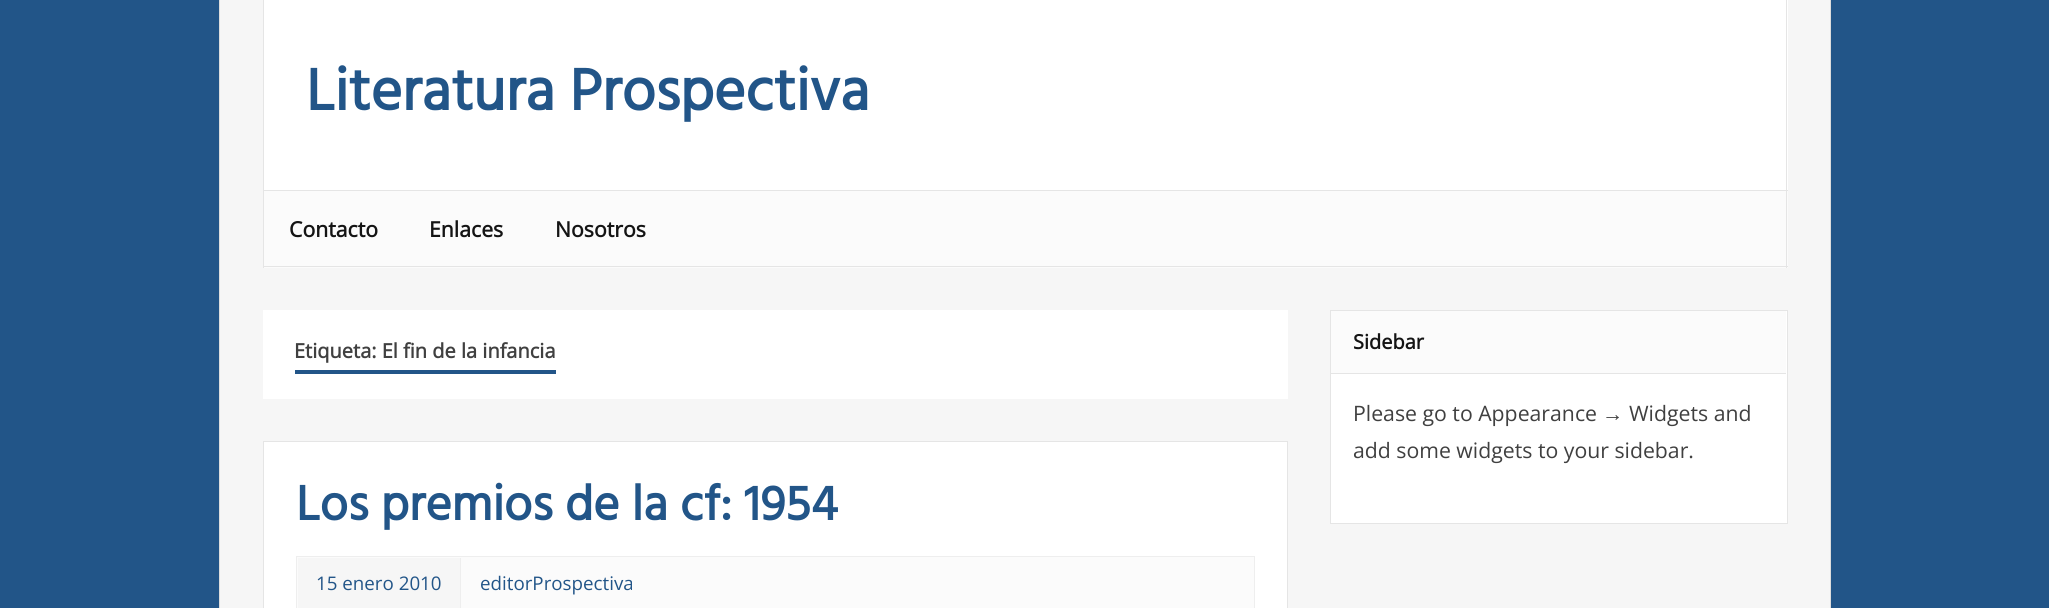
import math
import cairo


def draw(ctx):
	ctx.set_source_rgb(0.133, 0.333, 0.533)
	ctx.paint()
	ctx.set_source_rgb(0.961, 0.961, 0.961)
	ctx.rectangle(220, 0, 1610, 608)
	ctx.fill()
	ctx.set_source_rgb(0.867, 0.867, 0.867)
	ctx.rectangle(1830, 0, 1, 608)
	ctx.rectangle(219, 0, 1, 608)
	ctx.fill()
	ctx.set_source_rgb(1, 1, 1)
	ctx.rectangle(264, 0, 1524, 190)
	ctx.fill()
	ctx.set_source_rgb(0.898, 0.898, 0.898)
	ctx.rectangle(1786, 0, 1, 191)
	ctx.rectangle(263, 190, 1525, 1)
	ctx.rectangle(263, 0, 1, 191)
	ctx.fill()
	ctx.select_font_face('Hind', cairo.FONT_SLANT_NORMAL, cairo.FONT_WEIGHT_BOLD)
	ctx.set_font_size(60)
	ctx.set_source_rgb(0.133, 0.333, 0.533)
	ctx.move_to(306, 110)
	ctx.show_text('Literatura Prospectiva')
	ctx.set_source_rgb(0.984, 0.984, 0.984)
	ctx.rectangle(264, 191, 1524, 77)
	ctx.fill()
	ctx.set_source_rgb(0.898, 0.898, 0.898)
	ctx.rectangle(1786, 191, 1, 77)
	ctx.rectangle(263, 266, 1525, 1)
	ctx.rectangle(263, 191, 1, 77)
	ctx.fill()
	ctx.select_font_face('Open Sans', cairo.FONT_SLANT_NORMAL, cairo.FONT_WEIGHT_BOLD)
	ctx.set_font_size(21.25)
	ctx.set_source_rgb(0.082, 0.082, 0.082)
	for x, y, s in [
		(289, 237, 'Contacto'),
		(429, 237, 'Enlaces'),
		(555, 237, 'Nosotros'),
	]:
		ctx.move_to(x, y)
		ctx.show_text(s)
	ctx.set_source_rgb(1, 1, 1)
	ctx.rectangle(263, 310, 1025, 89)
	ctx.fill()
	ctx.set_source_rgb(0.133, 0.333, 0.533)
	ctx.rectangle(295, 370, 261, 4)
	ctx.fill()
	ctx.set_font_size(20)
	ctx.set_source_rgb(0.251, 0.251, 0.251)
	ctx.move_to(294, 358)
	ctx.show_text('Etiqueta: El fin de la infancia')
	ctx.set_source_rgb(1, 1, 1)
	ctx.rectangle(263.5, 441.5, 1024, 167)
	ctx.fill_preserve()
	ctx.set_source_rgb(0.898, 0.898, 0.898)
	ctx.set_line_width(1)
	ctx.stroke()
	ctx.select_font_face('Hind', cairo.FONT_SLANT_NORMAL, cairo.FONT_WEIGHT_BOLD)
	ctx.set_font_size(50)
	ctx.set_source_rgb(0.133, 0.333, 0.533)
	ctx.move_to(296, 520)
	ctx.show_text('Los premios de la cf: 1954')
	ctx.set_source_rgb(0.984, 0.984, 0.984)
	ctx.rectangle(296.5, 556.5, 958, 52)
	ctx.fill_preserve()
	ctx.set_source_rgb(0.933, 0.933, 0.933)
	ctx.stroke()
	ctx.set_source_rgb(0.961, 0.961, 0.961)
	ctx.rectangle(298, 558, 162, 50)
	ctx.fill()
	ctx.set_source_rgb(0.933, 0.933, 0.933)
	ctx.rectangle(460, 558, 1, 50)
	ctx.fill()
	ctx.select_font_face('Open Sans')
	ctx.set_font_size(18.75)
	ctx.set_source_rgb(0.133, 0.333, 0.533)
	ctx.move_to(316, 590)
	ctx.show_text('15 enero 2010')
	ctx.move_to(480, 590)
	ctx.show_text('editorProspectiva')
	ctx.set_source_rgb(1, 1, 1)
	ctx.rectangle(1330.5, 310.5, 457, 213)
	ctx.fill_preserve()
	ctx.set_source_rgb(0.898, 0.898, 0.898)
	ctx.stroke()
	ctx.set_source_rgb(0.984, 0.984, 0.984)
	ctx.rectangle(1331, 311, 455, 62)
	ctx.fill()
	ctx.set_source_rgb(0.898, 0.898, 0.898)
	ctx.rectangle(1331, 373, 455, 1)
	ctx.fill()
	ctx.select_font_face('Open Sans', cairo.FONT_SLANT_NORMAL, cairo.FONT_WEIGHT_BOLD)
	ctx.set_font_size(20)
	ctx.set_source_rgb(0.082, 0.082, 0.082)
	ctx.move_to(1353, 349)
	ctx.show_text('Sidebar')
	ctx.select_font_face('Open Sans')
	ctx.set_font_size(21.25)
	ctx.set_source_rgb(0.251, 0.251, 0.251)
	ctx.move_to(1353, 421)
	ctx.show_text('Please go to Appearance')
	ctx.select_font_face('Liberation Sans')
	ctx.move_to(1602, 421)
	ctx.show_text('→')
	ctx.select_font_face('Open Sans')
	ctx.move_to(1629, 421)
	ctx.show_text('Widgets and')
	ctx.move_to(1353, 458)
	ctx.show_text('add some widgets to your sidebar.')


surface = cairo.ImageSurface(cairo.FORMAT_RGB24, 2049, 608)
ctx = cairo.Context(surface)
options = cairo.FontOptions()
options.set_hint_metrics(cairo.HINT_METRICS_OFF)
options.set_hint_style(cairo.HINT_STYLE_NONE)
ctx.set_font_options(options)
ctx.set_miter_limit(4)
draw(ctx)
surface.write_to_png('image.png')
